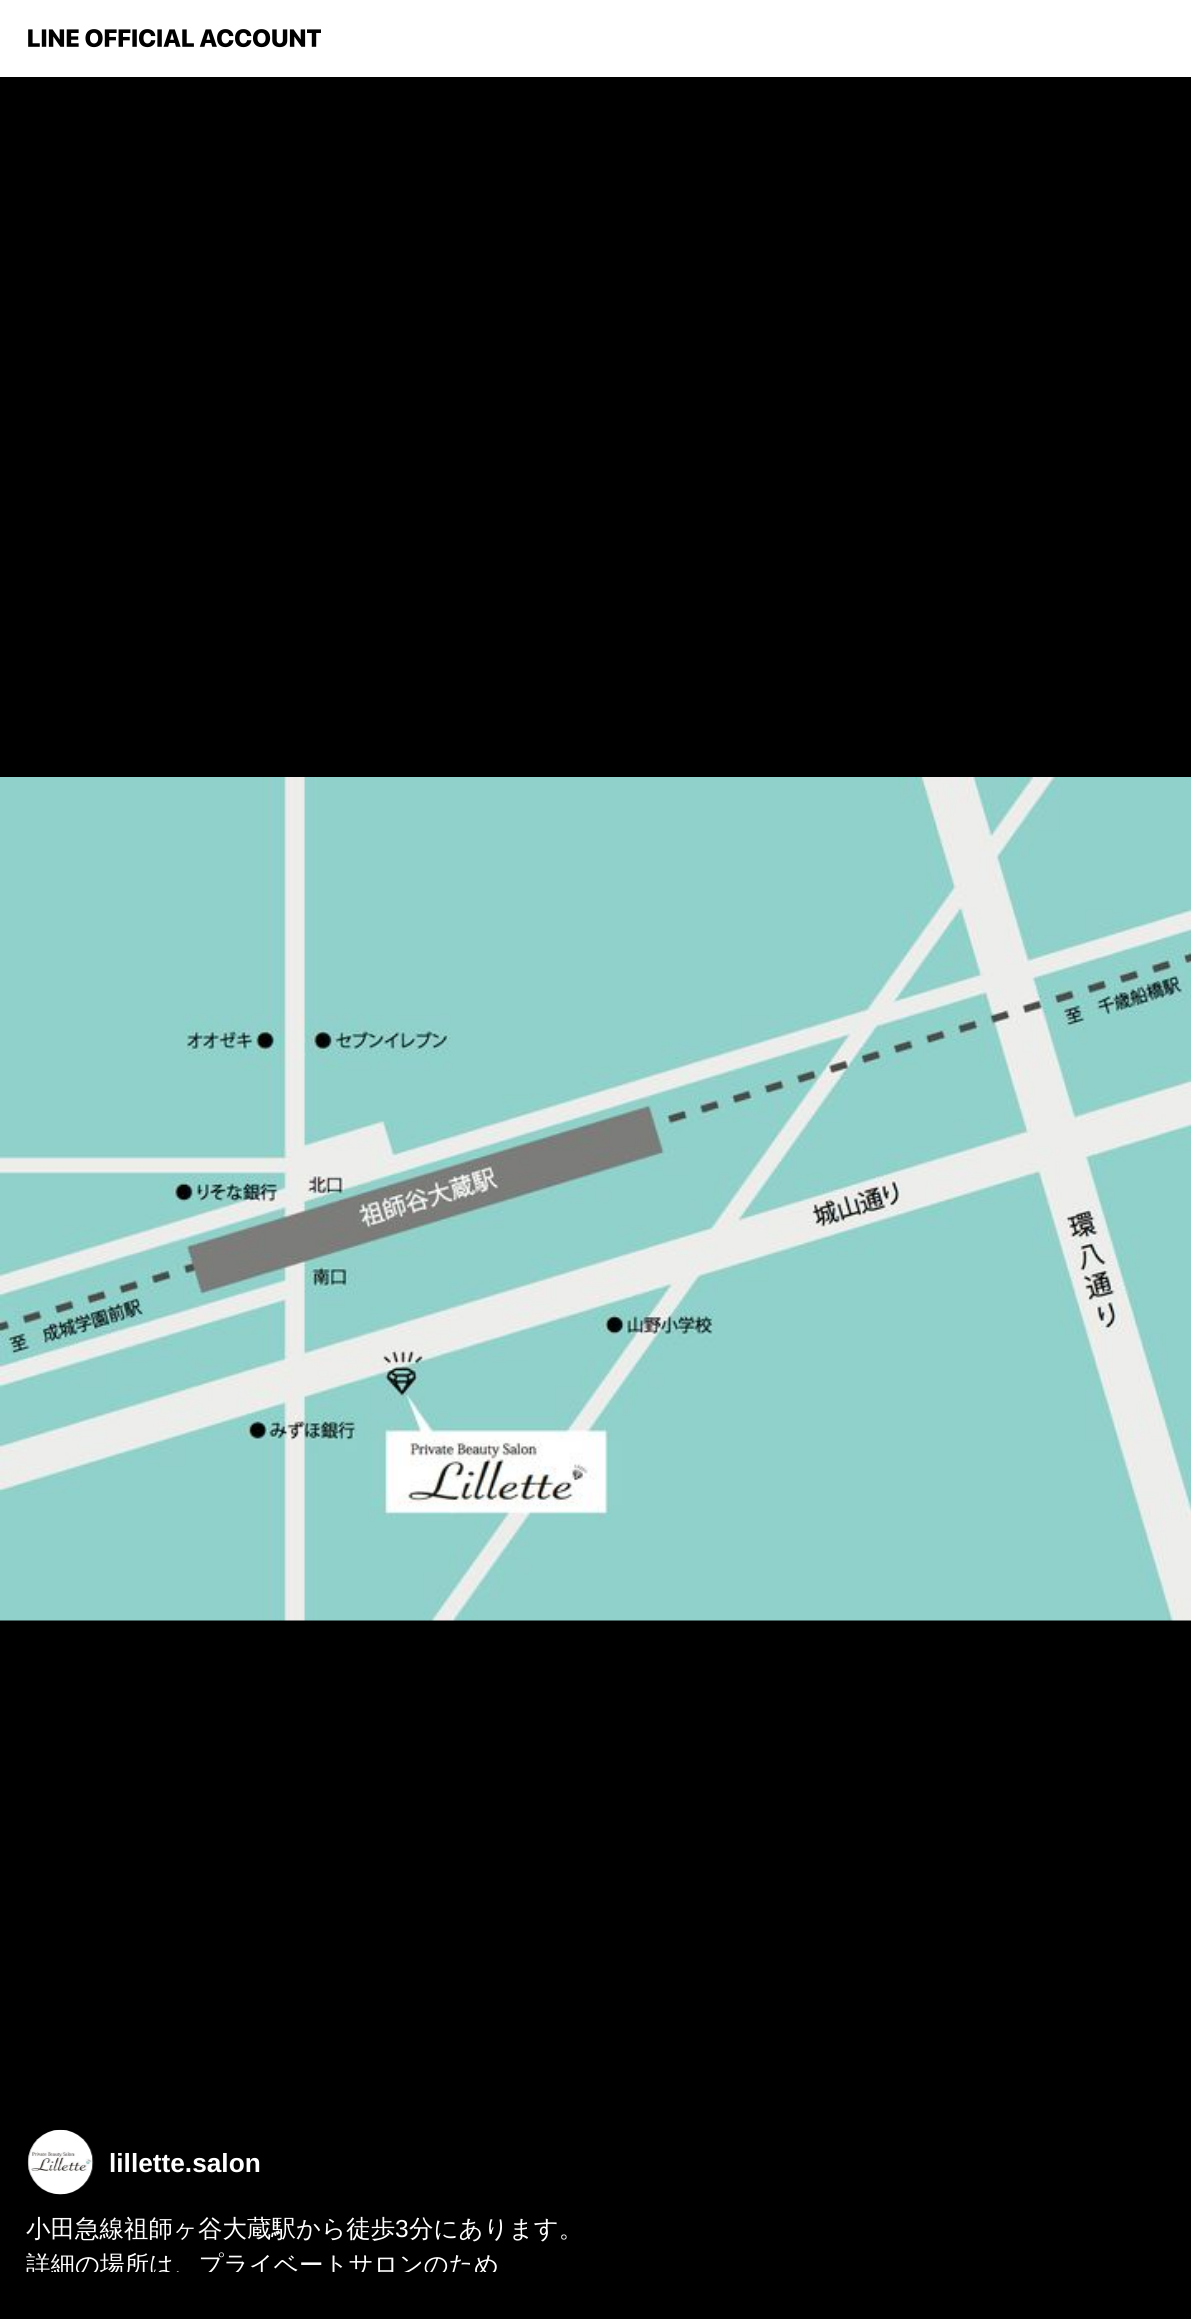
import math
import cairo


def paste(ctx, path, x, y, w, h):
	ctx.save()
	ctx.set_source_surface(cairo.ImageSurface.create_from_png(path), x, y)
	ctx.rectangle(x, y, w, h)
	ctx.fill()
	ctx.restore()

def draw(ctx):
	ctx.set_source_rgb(0, 0, 0)
	ctx.paint()
	ctx.set_source_rgb(1, 1, 1)
	ctx.rectangle(0, 0, 1191, 77)
	ctx.fill()
	paste(ctx, 'media/1.png', 28, 29, 293, 19)
	paste(ctx, 'media/2.png', 0, 777, 1191, 844)
	paste(ctx, 'media/3.png', 27, 2129, 67, 66)
	ctx.select_font_face('Liberation Sans', cairo.FONT_SLANT_NORMAL, cairo.FONT_WEIGHT_BOLD)
	ctx.set_font_size(26.25)
	ctx.move_to(109, 2172)
	ctx.show_text('lillette.salon')
	ctx.select_font_face('WenQuanYi Zen Hei Medium')
	ctx.set_font_size(24.5)
	ctx.move_to(26, 2237)
	ctx.show_text('小田急線祖師ヶ谷大蔵駅から徒歩')
	ctx.select_font_face('Liberation Sans')
	ctx.move_to(395, 2237)
	ctx.show_text('3')
	ctx.select_font_face('WenQuanYi Zen Hei Medium')
	ctx.move_to(409, 2237)
	ctx.show_text('分にあります。')
	ctx.save()
	ctx.rectangle(0, 2128, 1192, 144)
	ctx.clip()
	ctx.move_to(26, 2273)
	ctx.show_text('詳細の場所は、プライベートサロンのため')
	ctx.restore()


surface = cairo.ImageSurface(cairo.FORMAT_RGB24, 1191, 2319)
ctx = cairo.Context(surface)
options = cairo.FontOptions()
options.set_hint_metrics(cairo.HINT_METRICS_OFF)
options.set_hint_style(cairo.HINT_STYLE_NONE)
ctx.set_font_options(options)
ctx.set_miter_limit(4)
draw(ctx)
surface.write_to_png('image.png')
